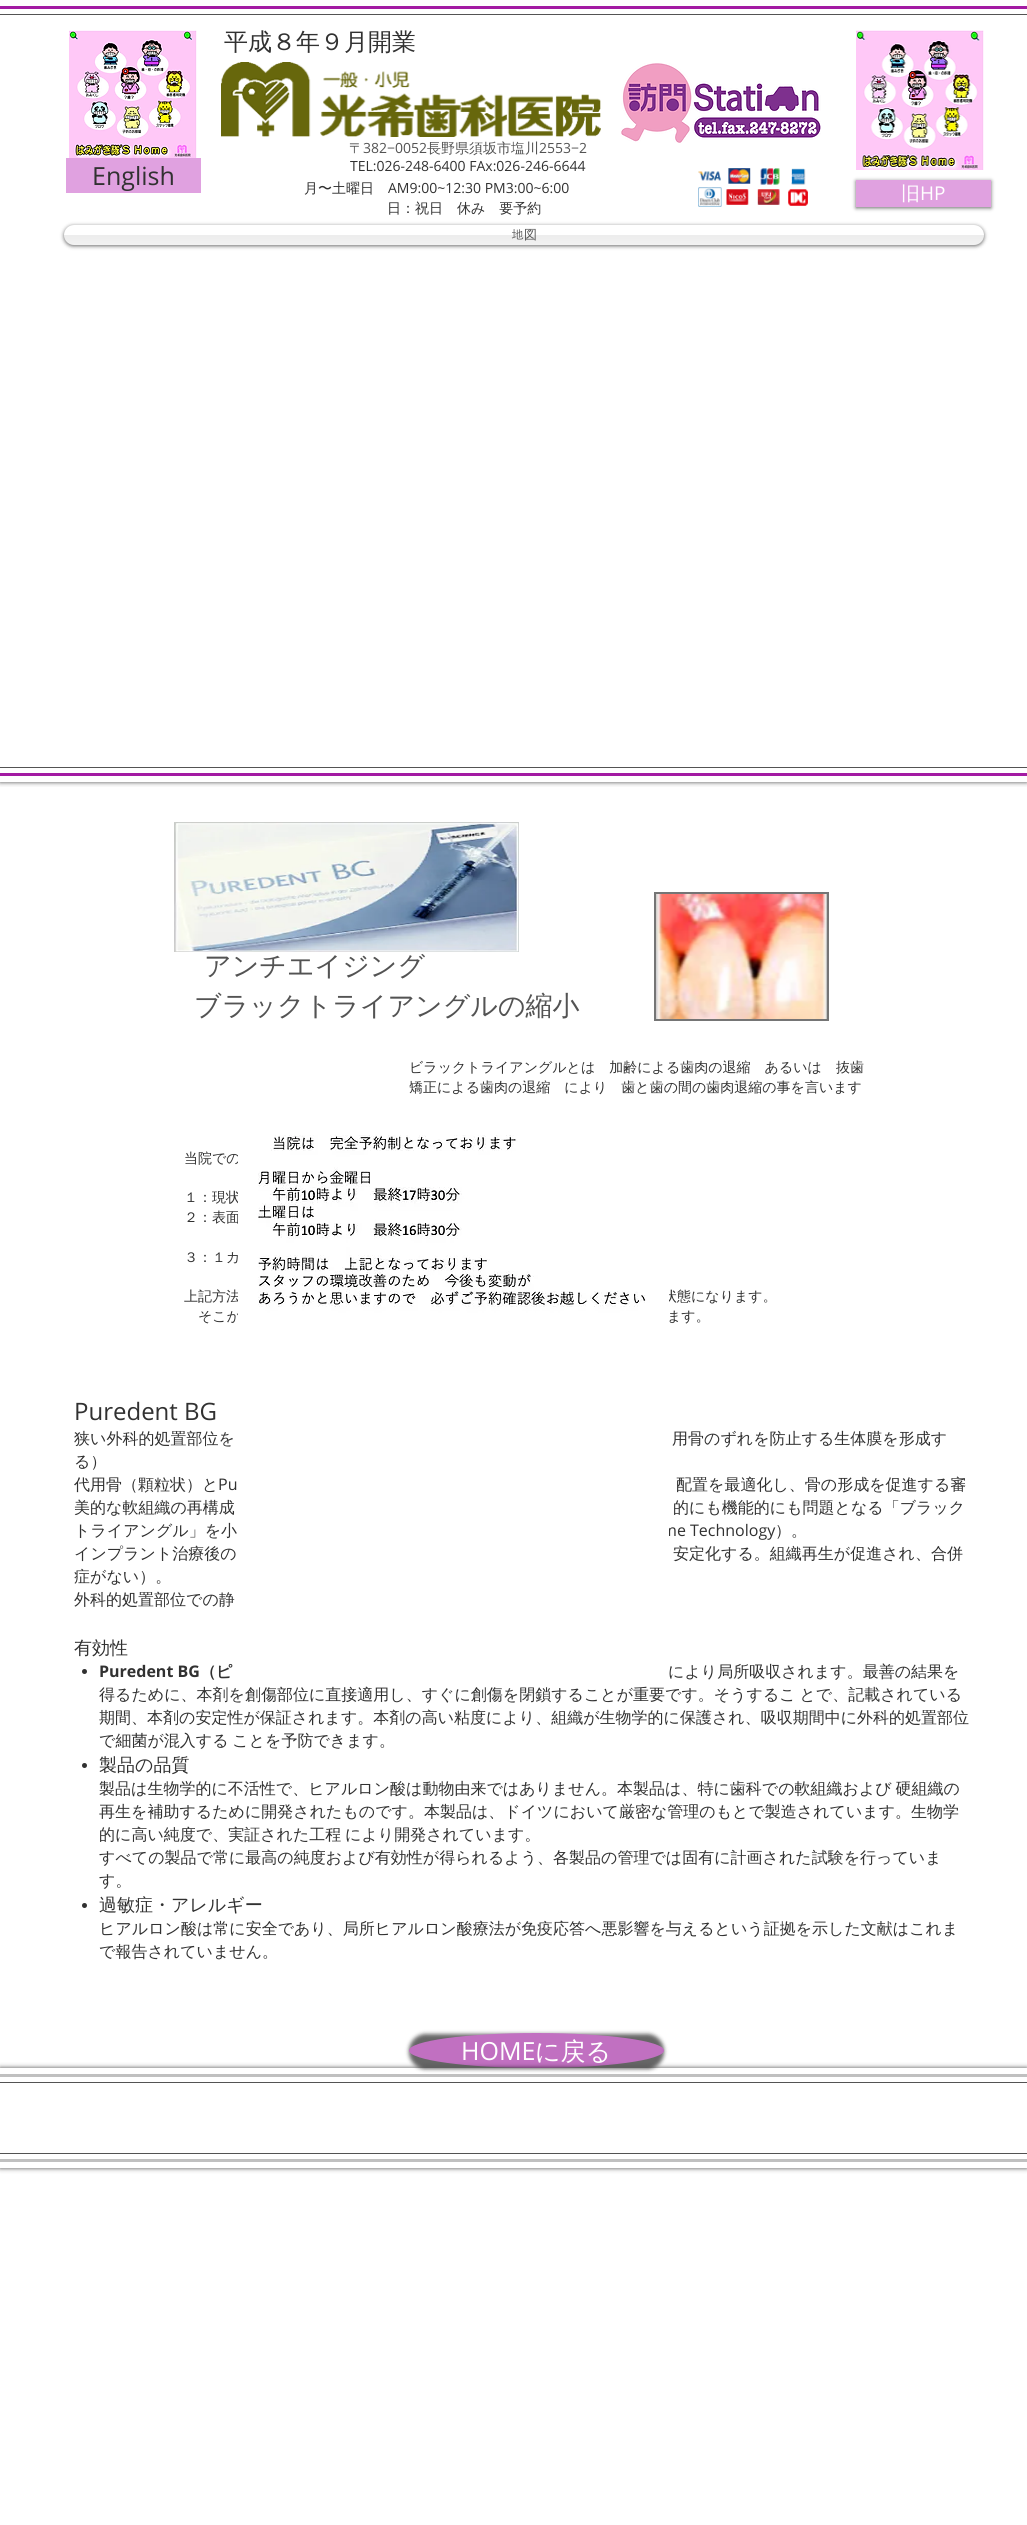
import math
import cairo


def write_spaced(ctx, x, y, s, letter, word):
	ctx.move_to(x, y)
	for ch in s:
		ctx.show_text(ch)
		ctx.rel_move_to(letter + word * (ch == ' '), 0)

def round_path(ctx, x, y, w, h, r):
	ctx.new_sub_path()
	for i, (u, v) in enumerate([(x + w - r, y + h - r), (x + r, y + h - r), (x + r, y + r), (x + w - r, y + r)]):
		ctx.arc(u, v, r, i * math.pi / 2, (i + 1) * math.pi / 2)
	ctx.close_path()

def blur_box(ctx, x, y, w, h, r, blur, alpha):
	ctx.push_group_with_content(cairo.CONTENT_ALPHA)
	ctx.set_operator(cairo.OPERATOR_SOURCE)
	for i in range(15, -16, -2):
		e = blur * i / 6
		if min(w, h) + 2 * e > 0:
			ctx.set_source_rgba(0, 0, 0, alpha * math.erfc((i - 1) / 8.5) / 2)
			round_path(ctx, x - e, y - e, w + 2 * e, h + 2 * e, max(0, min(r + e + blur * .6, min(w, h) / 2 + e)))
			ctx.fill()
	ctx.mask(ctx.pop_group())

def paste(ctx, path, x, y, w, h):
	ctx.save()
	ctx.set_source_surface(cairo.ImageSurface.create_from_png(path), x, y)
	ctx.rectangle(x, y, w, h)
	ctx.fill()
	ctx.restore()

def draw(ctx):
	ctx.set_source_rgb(1, 1, 1)
	ctx.paint()
	ctx.save()
	ctx.rectangle(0, 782, 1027, 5)
	ctx.clip()
	ctx.set_source_rgb(0, 0, 0)
	blur_box(ctx, 0, 0, 1027, 782, 0, 2.5, 0.7)
	ctx.restore()
	ctx.set_source_rgb(0.639, 0.102, 0.639)
	ctx.rectangle(0, 6, 1027, 3)
	ctx.rectangle(0, 773, 1027, 3)
	ctx.fill()
	ctx.set_source_rgb(0.325, 0.325, 0.325)
	ctx.rectangle(0, 14, 1027, 1)
	ctx.rectangle(0, 767, 1027, 1)
	ctx.fill()
	paste(ctx, 'media/1.png', 69, 30, 128, 128)
	ctx.select_font_face('WenQuanYi Zen Hei Medium')
	ctx.set_font_size(24)
	ctx.set_source_rgb(0.192, 0.192, 0.192)
	ctx.move_to(224, 50)
	ctx.show_text('平成８年９月開業')
	paste(ctx, 'media/2.png', 856, 30, 128, 140)
	paste(ctx, 'media/3.png', 221, 62, 380, 75)
	paste(ctx, 'media/4.png', 621, 63, 200, 80)
	ctx.set_font_size(14)
	ctx.set_source_rgb(0.325, 0.325, 0.325)
	ctx.move_to(349, 153)
	ctx.show_text('〒')
	ctx.select_font_face('Open Sans')
	ctx.move_to(363, 153)
	ctx.show_text('382−0052')
	ctx.select_font_face('WenQuanYi Zen Hei Medium')
	ctx.move_to(427, 153)
	ctx.show_text('長野県須坂市塩川')
	ctx.select_font_face('Open Sans')
	ctx.move_to(539, 153)
	ctx.show_text('2553−2')
	ctx.set_source_rgb(0.192, 0.192, 0.192)
	ctx.move_to(350, 171)
	ctx.show_text('TEL:026-248-6400 FAx:026-246-6644')
	ctx.set_source_rgb(0.878, 0.631, 0.878)
	ctx.rectangle(66, 158, 135, 35)
	ctx.fill()
	ctx.set_font_size(25)
	ctx.set_source_rgb(0.192, 0.192, 0.192)
	ctx.move_to(92, 185)
	ctx.show_text('English')
	ctx.select_font_face('WenQuanYi Zen Hei Medium')
	ctx.set_font_size(14)
	ctx.move_to(304, 193)
	ctx.show_text('月〜土曜日')
	ctx.select_font_face('Open Sans')
	ctx.move_to(388, 193)
	ctx.show_text('AM9:00~12:30 PM3:00~6:00')
	ctx.select_font_face('WenQuanYi Zen Hei Medium')
	ctx.move_to(387, 213)
	ctx.show_text('日：祝日　休み　要予約')
	paste(ctx, 'media/5.png', 698, 168, 110, 39)
	ctx.set_source_rgb(0, 0, 0)
	blur_box(ctx, 856, 181, 135, 27, 0, 2, 0.6)
	ctx.set_source_rgb(0.878, 0.631, 0.878)
	ctx.rectangle(856, 180, 135, 27)
	ctx.fill()
	ctx.set_font_size(19)
	ctx.set_source_rgb(1, 1, 1)
	ctx.move_to(901, 200)
	ctx.show_text('旧')
	ctx.select_font_face('Open Sans')
	ctx.move_to(920, 200)
	ctx.show_text('HP')
	ctx.set_source_rgb(0, 0, 0)
	blur_box(ctx, 64, 226, 920, 20, 10, 2, 0.6)
	ctx.set_source_rgb(1, 1, 1)
	round_path(ctx, 64, 225, 920, 20, 10)
	ctx.fill()
	paste(ctx, 'media/6.png', 64, 235, 920, 10)
	ctx.select_font_face('Dotum')
	ctx.set_font_size(13)
	ctx.set_source_rgb(0.325, 0.325, 0.325)
	ctx.move_to(511, 239)
	ctx.show_text('地')
	ctx.select_font_face('WenQuanYi Zen Hei Medium')
	ctx.move_to(524, 239)
	ctx.show_text('図')
	paste(ctx, 'media/7.png', 174, 822, 345, 130)
	ctx.set_source_rgb(0.459, 0.459, 0.459)
	ctx.rectangle(654, 892, 175, 129)
	ctx.fill()
	paste(ctx, 'media/8.png', 656, 894, 171, 125)
	ctx.set_font_size(27)
	ctx.set_source_rgb(0.325, 0.325, 0.325)
	ctx.move_to(204, 975)
	ctx.show_text('アンチエイジング')
	ctx.move_to(194, 1015)
	ctx.show_text('ブラックトライアングルの縮小')
	ctx.set_font_size(14)
	ctx.set_source_rgb(0.192, 0.192, 0.192)
	for x, y, s in [
		(409, 1072, 'ビラックトライアングルとは　加齢による歯肉の退縮　あるいは　抜歯'),
		(409, 1092, '矯正による歯肉の退縮　により　歯と歯の間の歯肉退縮の事を言います'),
		(184, 1163, '当院での'),
		(184, 1202, '１：現状'),
		(184, 1222, '２：表面'),
	]:
		ctx.move_to(x, y)
		ctx.show_text(s)
	write_spaced(ctx, 184, 1262, '３：１カ', 0, -1)
	for x, y, s in [
		(184, 1301, '上記方法'),
		(663, 1301, '状態になります。'),
		(198, 1321, 'そこか'),
		(667, 1321, 'ます。'),
	]:
		ctx.move_to(x, y)
		ctx.show_text(s)
	ctx.select_font_face('Open Sans')
	ctx.set_font_size(24)
	ctx.move_to(74, 1420)
	ctx.show_text('Puredent BG')
	ctx.select_font_face('WenQuanYi Zen Hei Medium')
	ctx.set_font_size(16)
	for x, y, s in [
		(74, 1444, '狭い外科的処置部位を'),
		(672, 1444, '用骨のずれを防止する生体膜を形成す'),
		(74, 1467, 'る）'),
		(74, 1490, '代用骨（顆粒状）と'),
	]:
		ctx.move_to(x, y)
		ctx.show_text(s)
	ctx.select_font_face('Open Sans')
	ctx.move_to(218, 1490)
	ctx.show_text('Pu')
	ctx.select_font_face('WenQuanYi Zen Hei Medium')
	ctx.move_to(676, 1490)
	ctx.show_text('配置を最適化し、骨の形成を促進する審')
	write_spaced(ctx, 74, 1513, '美的な軟組織の再構成', 0, -1)
	write_spaced(ctx, 673, 1513, '的にも機能的にも問題となる「ブラック', 0, -1)
	ctx.move_to(74, 1536)
	ctx.show_text('トライアングル」を小')
	ctx.select_font_face('Open Sans')
	ctx.move_to(662, 1536)
	ctx.show_text('me Technology')
	ctx.select_font_face('WenQuanYi Zen Hei Medium')
	for x, y, s in [
		(775, 1536, '）。'),
		(74, 1559, 'インプラント治療後の'),
		(673, 1559, '安定化する。組織再生が促進され、合併'),
		(74, 1582, '症がない）。'),
		(74, 1605, '外科的処置部位での静'),
	]:
		ctx.move_to(x, y)
		ctx.show_text(s)
	ctx.set_font_size(18)
	ctx.move_to(74, 1654)
	ctx.show_text('有効性')
	ctx.new_path()
	ctx.arc(84.5, 1671.5, 2.5, 0, 2 * math.pi)
	ctx.fill()
	ctx.select_font_face('Open Sans', cairo.FONT_SLANT_NORMAL, cairo.FONT_WEIGHT_BOLD)
	ctx.set_font_size(16)
	ctx.move_to(99, 1677)
	ctx.show_text('Puredent BG')
	ctx.select_font_face('WenQuanYi Zen Hei', cairo.FONT_SLANT_NORMAL, cairo.FONT_WEIGHT_BOLD)
	ctx.move_to(200, 1677)
	ctx.show_text('（ピ')
	ctx.select_font_face('WenQuanYi Zen Hei Medium')
	ctx.move_to(668, 1677)
	ctx.show_text('により局所吸収されます。最善の結果を')
	write_spaced(ctx, 99, 1700, '得るために、本剤を創傷部位に直接適用し、すぐに創傷を閉鎖することが重要です。そうするこ とで、記載されている', 0, -1)
	ctx.move_to(99, 1723)
	ctx.show_text('期間、本剤の安定性が保証されます。本剤の高い粘度により、組織が生物学的に保護され、吸収期間中に外科的処置部位')
	write_spaced(ctx, 99, 1746, 'で細菌が混入する ことを予防できます。', 0, -1)
	ctx.new_path()
	ctx.arc(84.5, 1765.5, 2.5, 0, 2 * math.pi)
	ctx.fill()
	ctx.set_font_size(18)
	ctx.move_to(99, 1771)
	ctx.show_text('製品の品質')
	ctx.set_font_size(16)
	write_spaced(ctx, 99, 1794, '製品は生物学的に不活性で、ヒアルロン酸は動物由来ではありません。本製品は、特に歯科での軟組織および 硬組織の', 0, -1)
	ctx.move_to(99, 1817)
	ctx.show_text('再生を補助するために開発されたものです。本製品は、ドイツにおいて厳密な管理のもとで製造されています。生物学')
	write_spaced(ctx, 99, 1840, '的に高い純度で、実証された工程 により開発されています。', 0, -1)
	ctx.move_to(99, 1863)
	ctx.show_text('すべての製品で常に最高の純度および有効性が得られるよう、各製品の管理では固有に計画された試験を行っていま')
	ctx.move_to(99, 1886)
	ctx.show_text('す。')
	ctx.new_path()
	ctx.arc(84.5, 1905.5, 2.5, 0, 2 * math.pi)
	ctx.fill()
	ctx.set_font_size(18)
	ctx.move_to(99, 1911)
	ctx.show_text('過敏症・アレルギー')
	ctx.set_font_size(16)
	ctx.move_to(99, 1934)
	ctx.show_text('ヒアルロン酸は常に安全であり、局所ヒアルロン酸療法が免疫応答へ悪影響を与えるという証拠を示した文献はこれま')
	ctx.move_to(99, 1957)
	ctx.show_text('で報告されていません。')
	ctx.set_source_rgb(0, 0, 0)
	blur_box(ctx, 409, 2034, 255, 35, 17.5, 2, 0.6)
	ctx.set_source_rgb(0.757, 0.439, 0.757)
	ctx.new_path()
	ctx.move_to(536.5, 2033)
	ctx.curve_to(607, 2033, 664, 2041, 664, 2050.5)
	ctx.curve_to(664, 2060, 607, 2068, 536.5, 2068)
	ctx.curve_to(466, 2068, 409, 2060, 409, 2050.5)
	ctx.curve_to(409, 2041, 466, 2033, 536.5, 2033)
	ctx.close_path()
	ctx.fill()
	ctx.select_font_face('Open Sans')
	ctx.set_font_size(25)
	ctx.set_source_rgb(1, 1, 1)
	ctx.move_to(461, 2060)
	ctx.show_text('HOME')
	ctx.select_font_face('WenQuanYi Zen Hei Medium')
	ctx.move_to(535, 2060)
	ctx.show_text('に戻る')
	paste(ctx, 'media/9.png', 238, 1135, 431, 544)
	ctx.save()
	ctx.set_fill_rule(cairo.FILL_RULE_EVEN_ODD)
	ctx.new_path()
	ctx.move_to(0, 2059)
	ctx.line_to(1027, 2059)
	ctx.line_to(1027, 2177)
	ctx.line_to(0, 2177)
	ctx.close_path()
	ctx.move_to(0, 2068)
	ctx.line_to(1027, 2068)
	ctx.line_to(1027, 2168)
	ctx.line_to(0, 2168)
	ctx.close_path()
	ctx.clip()
	ctx.set_source_rgb(0, 0, 0)
	blur_box(ctx, 0, 2068, 1027, 100, 0, 2.5, 0.7)
	ctx.restore()
	ctx.set_source_rgb(0.753, 0.753, 0.753)
	ctx.rectangle(0, 2074, 1027, 3)
	ctx.rectangle(0, 2159, 1027, 3)
	ctx.fill()
	ctx.set_source_rgb(0.325, 0.325, 0.325)
	ctx.rectangle(0, 2082, 1027, 1)
	ctx.rectangle(0, 2153, 1027, 1)
	ctx.fill()


surface = cairo.ImageSurface(cairo.FORMAT_RGB24, 1027, 2525)
ctx = cairo.Context(surface)
options = cairo.FontOptions()
options.set_hint_metrics(cairo.HINT_METRICS_OFF)
options.set_hint_style(cairo.HINT_STYLE_NONE)
ctx.set_font_options(options)
ctx.set_miter_limit(4)
draw(ctx)
surface.write_to_png('image.png')
